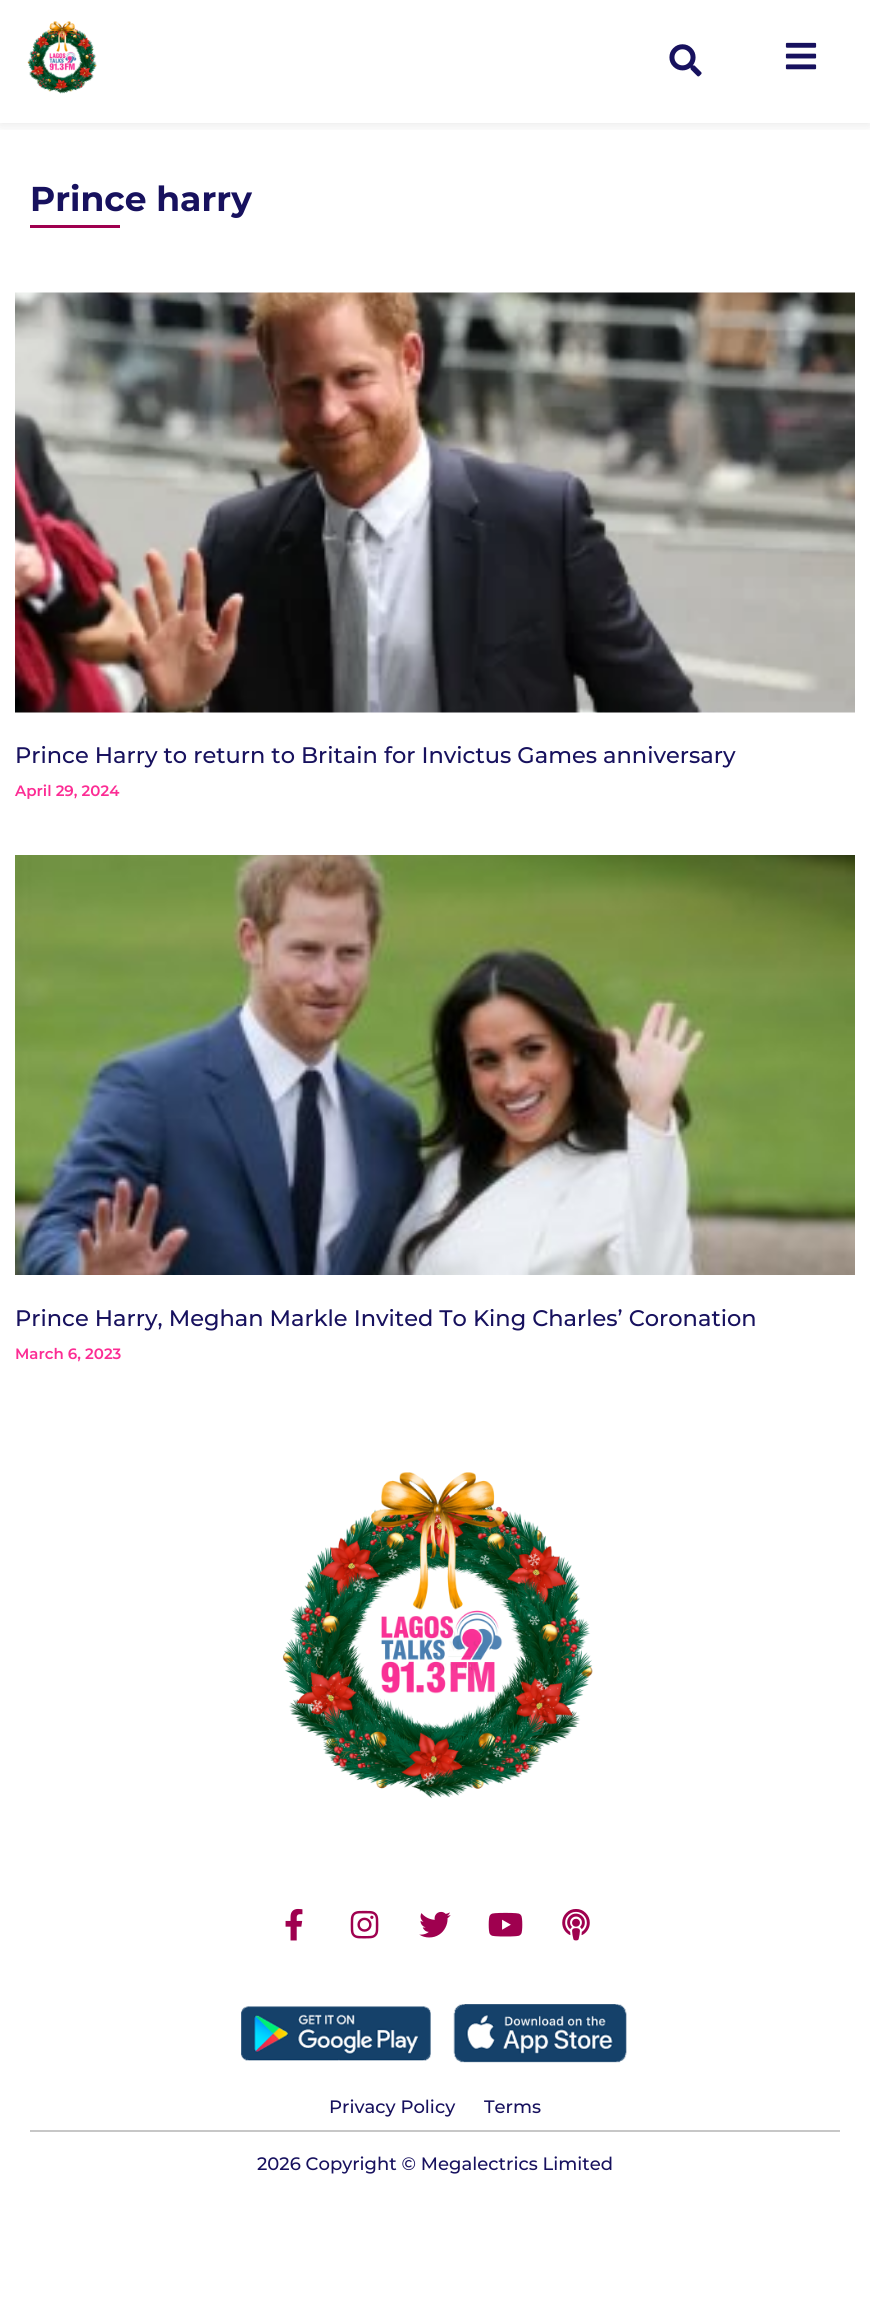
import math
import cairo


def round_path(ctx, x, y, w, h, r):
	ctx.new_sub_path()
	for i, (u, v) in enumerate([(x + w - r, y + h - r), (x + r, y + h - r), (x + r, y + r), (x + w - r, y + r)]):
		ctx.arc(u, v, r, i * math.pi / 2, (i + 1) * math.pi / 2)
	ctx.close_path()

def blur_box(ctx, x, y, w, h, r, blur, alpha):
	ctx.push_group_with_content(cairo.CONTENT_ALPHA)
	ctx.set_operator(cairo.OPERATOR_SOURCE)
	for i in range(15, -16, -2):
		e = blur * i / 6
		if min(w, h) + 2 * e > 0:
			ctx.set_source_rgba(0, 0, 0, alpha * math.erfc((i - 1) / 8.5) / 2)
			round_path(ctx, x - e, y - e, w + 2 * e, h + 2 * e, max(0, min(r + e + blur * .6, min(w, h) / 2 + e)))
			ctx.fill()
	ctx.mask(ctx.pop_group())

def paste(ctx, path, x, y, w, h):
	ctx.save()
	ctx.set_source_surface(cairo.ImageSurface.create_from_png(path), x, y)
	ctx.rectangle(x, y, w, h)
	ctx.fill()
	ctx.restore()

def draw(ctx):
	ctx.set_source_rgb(1, 1, 1)
	ctx.paint()
	ctx.save()
	ctx.rectangle(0, 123, 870, 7)
	ctx.clip()
	ctx.set_source_rgb(0, 0, 0)
	blur_box(ctx, 0, 0, 870, 123, 0, 7.5, 0.11)
	ctx.restore()
	paste(ctx, 'media/1.png', 27, 21, 70, 73)
	paste(ctx, 'media/2.png', 669, 44, 33, 33)
	paste(ctx, 'media/3.png', 785, 42, 32, 28)
	ctx.select_font_face('Montserrat', cairo.FONT_SLANT_NORMAL, cairo.FONT_WEIGHT_BOLD)
	ctx.set_font_size(34.5)
	ctx.set_source_rgb(0.09, 0.067, 0.369)
	ctx.move_to(30, 211)
	ctx.show_text('Prince harry')
	ctx.set_source_rgb(0.624, 0, 0.31)
	ctx.rectangle(30, 225, 90, 3)
	ctx.fill()
	paste(ctx, 'media/4.png', 15, 292, 840, 421)
	ctx.select_font_face('Montserrat Medium')
	ctx.set_font_size(22.5)
	ctx.set_source_rgb(0.09, 0.067, 0.369)
	ctx.move_to(15, 763)
	ctx.show_text('Prince Harry to return to Britain for Invictus Games anniversary')
	ctx.select_font_face('Montserrat SemiBold')
	ctx.set_font_size(15)
	ctx.set_source_rgb(0.988, 0.173, 0.58)
	ctx.move_to(15, 796)
	ctx.show_text('April 29, 2024')
	paste(ctx, 'media/5.png', 15, 855, 840, 420)
	ctx.select_font_face('Montserrat Medium')
	ctx.set_font_size(22.5)
	ctx.set_source_rgb(0.09, 0.067, 0.369)
	ctx.move_to(15, 1326)
	ctx.show_text('Prince Harry, Meghan Markle Invited To King Charles’ Coronation')
	ctx.select_font_face('Montserrat SemiBold')
	ctx.set_font_size(15)
	ctx.set_source_rgb(0.988, 0.173, 0.58)
	ctx.move_to(15, 1359)
	ctx.show_text('March 6, 2023')
	paste(ctx, 'media/6.png', 282, 1472, 311, 327)
	paste(ctx, 'media/7.png', 285, 1908, 18, 33)
	paste(ctx, 'media/8.png', 350, 1910, 29, 29)
	paste(ctx, 'media/9.png', 419, 1911, 32, 27)
	paste(ctx, 'media/10.png', 488, 1912, 35, 25)
	paste(ctx, 'media/11.png', 562, 1909, 28, 32)
	paste(ctx, 'media/12.png', 241, 2006, 190, 55)
	paste(ctx, 'media/13.png', 453, 2004, 174, 59)
	ctx.select_font_face('Montserrat Medium')
	ctx.set_font_size(18)
	ctx.set_source_rgb(0.09, 0.067, 0.369)
	ctx.move_to(329, 2113)
	ctx.show_text('Privacy Policy')
	ctx.move_to(484, 2113)
	ctx.show_text('Terms')
	ctx.set_source_rgb(0.78, 0.78, 0.78)
	ctx.rectangle(30, 2130, 810, 2)
	ctx.fill()
	ctx.set_source_rgb(0.09, 0.067, 0.369)
	ctx.move_to(257, 2170)
	ctx.show_text('2026 Copyright © Megalectrics Limited')


surface = cairo.ImageSurface(cairo.FORMAT_RGB24, 870, 2297)
ctx = cairo.Context(surface)
options = cairo.FontOptions()
options.set_hint_metrics(cairo.HINT_METRICS_OFF)
options.set_hint_style(cairo.HINT_STYLE_NONE)
ctx.set_font_options(options)
ctx.set_miter_limit(4)
draw(ctx)
surface.write_to_png('image.png')
